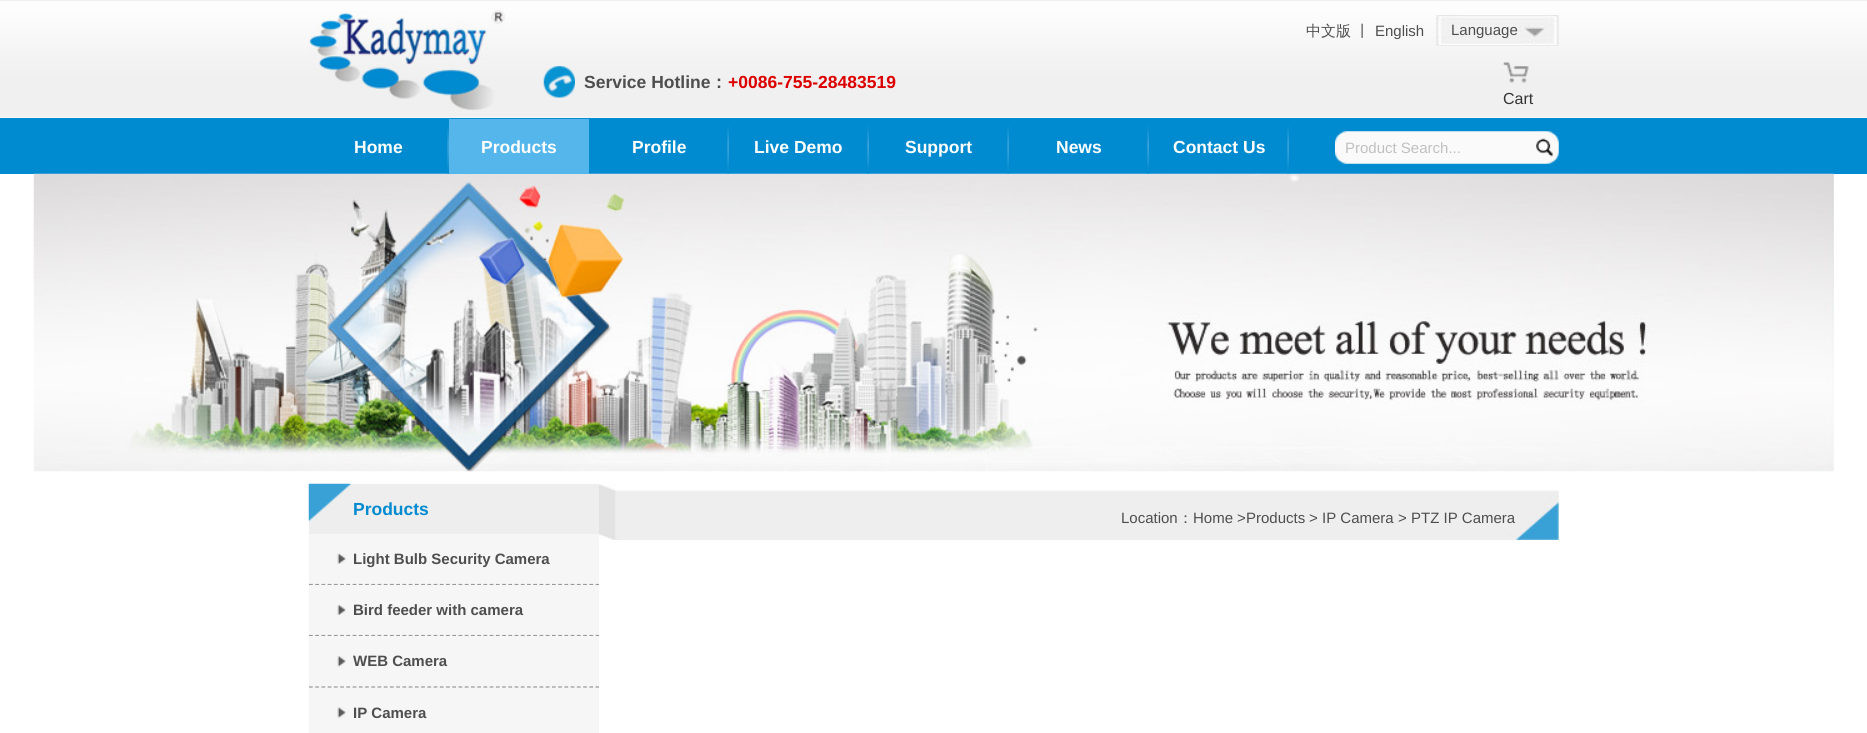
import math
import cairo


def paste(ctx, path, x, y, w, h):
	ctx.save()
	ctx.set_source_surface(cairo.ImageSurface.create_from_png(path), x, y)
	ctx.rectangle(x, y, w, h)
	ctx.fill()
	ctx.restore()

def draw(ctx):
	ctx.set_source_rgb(1, 1, 1)
	ctx.paint()
	paste(ctx, 'media/1.png', 0, 0, 1867, 118)
	paste(ctx, 'media/2.png', 309, 10, 196, 100)
	paste(ctx, 'media/3.png', 543, 66, 32, 32)
	ctx.select_font_face('Liberation Sans', cairo.FONT_SLANT_NORMAL, cairo.FONT_WEIGHT_BOLD)
	ctx.set_font_size(17.5)
	ctx.set_source_rgb(0.306, 0.306, 0.306)
	ctx.move_to(584, 88)
	ctx.show_text('Service Hotline')
	ctx.select_font_face('WenQuanYi Zen Hei', cairo.FONT_SLANT_NORMAL, cairo.FONT_WEIGHT_BOLD)
	ctx.move_to(710, 88)
	ctx.show_text('：')
	ctx.select_font_face('Liberation Sans', cairo.FONT_SLANT_NORMAL, cairo.FONT_WEIGHT_BOLD)
	ctx.set_source_rgb(0.867, 0, 0)
	ctx.move_to(728, 88)
	ctx.show_text('+0086-755-28483519')
	ctx.select_font_face('WenQuanYi Zen Hei Medium')
	ctx.set_font_size(15)
	ctx.set_source_rgb(0.306, 0.306, 0.306)
	ctx.move_to(1306, 36)
	ctx.show_text('中文版')
	ctx.move_to(1355, 36)
	ctx.show_text('丨')
	ctx.select_font_face('Liberation Sans')
	ctx.move_to(1375, 36)
	ctx.show_text('English')
	paste(ctx, 'media/4.png', 1436, 15, 123, 31)
	ctx.move_to(1451, 35)
	ctx.show_text('Language')
	paste(ctx, 'media/5.png', 1503, 62, 26, 21)
	ctx.set_font_size(16)
	ctx.set_source_rgb(0.2, 0.2, 0.2)
	ctx.move_to(1503, 104)
	ctx.show_text('Cart')
	ctx.set_source_rgb(0, 0.545, 0.816)
	ctx.rectangle(0, 118, 1867, 56)
	ctx.fill()
	paste(ctx, 'media/9.png', 33, 173, 1801, 299)
	paste(ctx, 'media/6.png', 447, 125, 2, 49)
	ctx.select_font_face('Liberation Sans', cairo.FONT_SLANT_NORMAL, cairo.FONT_WEIGHT_BOLD)
	ctx.set_font_size(17.5)
	ctx.set_source_rgb(1, 1, 1)
	ctx.move_to(354, 153)
	ctx.show_text('Home')
	ctx.set_source_rgb(0.329, 0.714, 0.918)
	ctx.rectangle(449, 119, 140, 55)
	ctx.fill()
	ctx.set_source_rgb(1, 1, 1)
	ctx.move_to(481, 153)
	ctx.show_text('Products')
	paste(ctx, 'media/6.png', 727, 125, 2, 49)
	ctx.move_to(632, 153)
	ctx.show_text('Profile')
	paste(ctx, 'media/6.png', 867, 125, 2, 49)
	ctx.move_to(754, 153)
	ctx.show_text('Live Demo')
	paste(ctx, 'media/6.png', 1007, 125, 2, 49)
	ctx.move_to(905, 153)
	ctx.show_text('Support')
	paste(ctx, 'media/6.png', 1147, 125, 2, 49)
	ctx.move_to(1056, 153)
	ctx.show_text('News')
	paste(ctx, 'media/6.png', 1287, 125, 2, 49)
	ctx.move_to(1173, 153)
	ctx.show_text('Contact Us')
	paste(ctx, 'media/7.png', 1335, 131, 195, 33)
	ctx.select_font_face('Liberation Sans')
	ctx.set_font_size(15)
	ctx.set_source_rgb(0.753, 0.753, 0.753)
	ctx.move_to(1345, 153)
	ctx.show_text('Product Search...')
	paste(ctx, 'media/8.png', 1530, 131, 29, 33)
	ctx.set_source_rgb(0.961, 0.961, 0.961)
	ctx.rectangle(309, 534, 290, 199)
	ctx.fill()
	ctx.set_source_rgb(0.933, 0.933, 0.933)
	ctx.rectangle(309, 484, 290, 50)
	ctx.fill()
	paste(ctx, 'media/10.png', 308, 483, 44, 39)
	ctx.select_font_face('Liberation Sans', cairo.FONT_SLANT_NORMAL, cairo.FONT_WEIGHT_BOLD)
	ctx.set_font_size(17.5)
	ctx.set_source_rgb(0, 0.541, 0.816)
	ctx.move_to(353, 515)
	ctx.show_text('Products')
	paste(ctx, 'media/11.png', 337, 553, 9, 11)
	ctx.new_path()
	ctx.move_to(309, 584.5)
	ctx.line_to(599, 584.5)
	ctx.set_source_rgb(0.6, 0.6, 0.6)
	ctx.set_line_width(1.2)
	ctx.set_dash([3.75, 2.48])
	ctx.stroke()
	ctx.set_font_size(15)
	ctx.set_source_rgb(0.306, 0.306, 0.306)
	ctx.move_to(353, 564)
	ctx.show_text('Light Bulb Security Camera')
	ctx.set_source_rgb(0.961, 0.961, 0.961)
	ctx.rectangle(309, 585, 290, 1)
	ctx.fill()
	paste(ctx, 'media/12.png', 337, 605, 9, 10)
	ctx.new_path()
	ctx.move_to(309, 635.5)
	ctx.line_to(599, 635.5)
	ctx.set_source_rgb(0.6, 0.6, 0.6)
	ctx.stroke()
	ctx.set_source_rgb(0.306, 0.306, 0.306)
	ctx.move_to(353, 615)
	ctx.show_text('Bird feeder with camera')
	ctx.set_source_rgb(0.961, 0.961, 0.961)
	ctx.rectangle(309, 636, 290, 1)
	ctx.fill()
	paste(ctx, 'media/13.png', 337, 656, 9, 11)
	ctx.new_path()
	ctx.move_to(309, 687)
	ctx.line_to(599, 687)
	ctx.set_source_rgb(0.6, 0.6, 0.6)
	ctx.stroke()
	ctx.set_source_rgb(0.306, 0.306, 0.306)
	ctx.move_to(353, 666)
	ctx.show_text('WEB Camera')
	paste(ctx, 'media/14.png', 337, 707, 9, 11)
	ctx.move_to(353, 718)
	ctx.show_text('IP Camera')
	paste(ctx, 'media/15.png', 599, 484, 960, 56)
	ctx.select_font_face('Liberation Sans')
	ctx.move_to(1121, 523)
	ctx.show_text('Location')
	ctx.select_font_face('WenQuanYi Zen Hei Medium')
	ctx.move_to(1178, 523)
	ctx.show_text('：')
	ctx.select_font_face('Liberation Sans')
	for x, y, s in [
		(1193, 523, 'Home'),
		(1237, 523, '>'),
		(1246, 523, 'Products'),
		(1309, 523, '>'),
		(1322, 523, 'IP Camera'),
		(1398, 523, '>'),
		(1411, 523, 'PTZ IP Camera'),
	]:
		ctx.move_to(x, y)
		ctx.show_text(s)


surface = cairo.ImageSurface(cairo.FORMAT_RGB24, 1867, 733)
ctx = cairo.Context(surface)
options = cairo.FontOptions()
options.set_hint_metrics(cairo.HINT_METRICS_OFF)
options.set_hint_style(cairo.HINT_STYLE_NONE)
ctx.set_font_options(options)
ctx.set_miter_limit(4)
draw(ctx)
surface.write_to_png('image.png')
